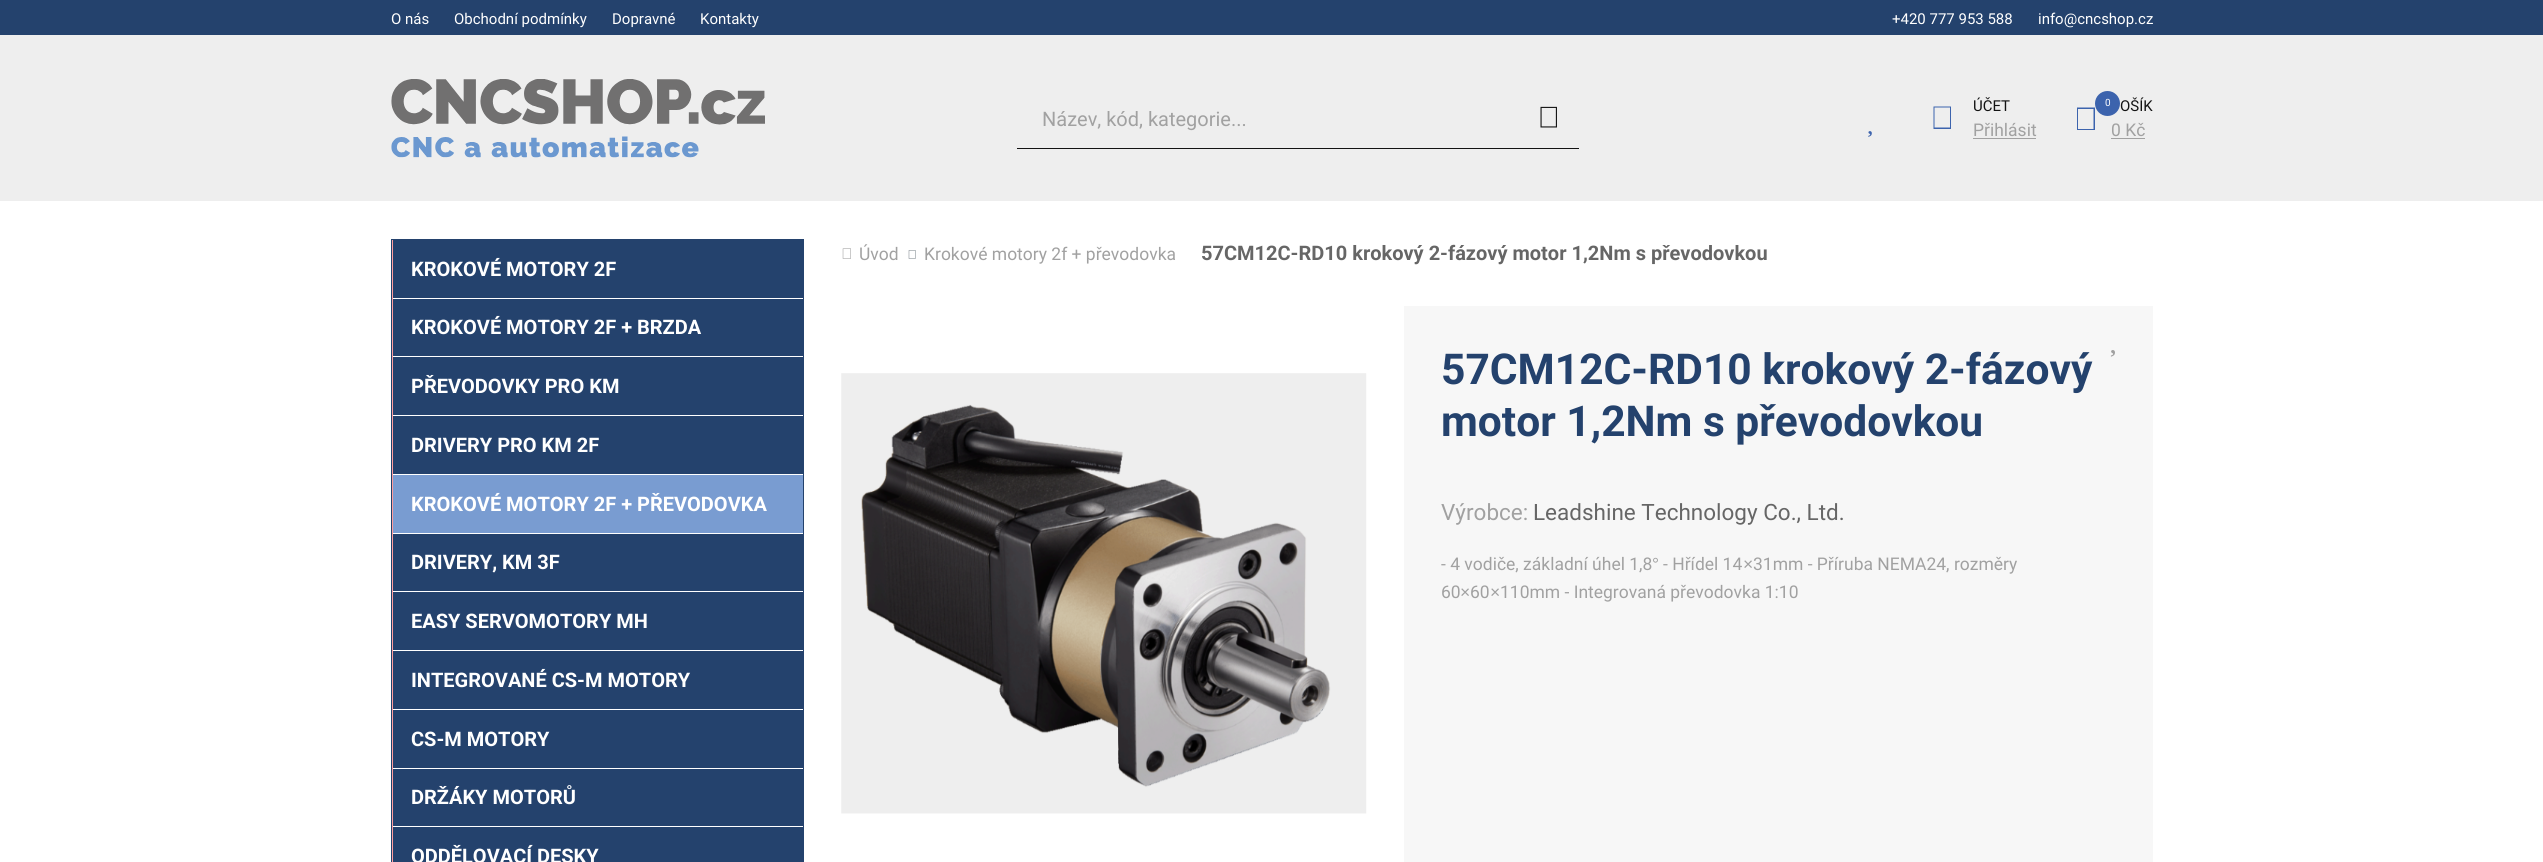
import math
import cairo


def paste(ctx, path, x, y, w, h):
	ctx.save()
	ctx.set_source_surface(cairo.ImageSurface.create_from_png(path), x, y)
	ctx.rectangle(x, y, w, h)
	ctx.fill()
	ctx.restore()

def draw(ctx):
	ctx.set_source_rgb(1, 1, 1)
	ctx.paint()
	ctx.set_source_rgb(0.141, 0.259, 0.427)
	ctx.rectangle(0, 0, 2543, 35)
	ctx.fill()
	ctx.select_font_face('Roboto')
	ctx.set_font_size(15)
	ctx.set_source_rgb(1, 1, 1)
	for x, y, s in [
		(391, 24, 'O nás'),
		(454, 24, 'Obchodní podmínky'),
		(612, 24, 'Dopravné'),
		(700, 24, 'Kontakty'),
		(1892, 24, '+420 777 953 588'),
		(2038, 24, 'info@cncshop.cz'),
	]:
		ctx.move_to(x, y)
		ctx.show_text(s)
	ctx.set_source_rgb(0.933, 0.933, 0.933)
	ctx.rectangle(0, 35, 2543, 166)
	ctx.fill()
	paste(ctx, 'media/1.png', 391, 79, 374, 79)
	ctx.set_source_rgb(0.078, 0.078, 0.078)
	ctx.rectangle(1016, 148, 563, 1)
	ctx.fill()
	ctx.set_source_rgb(0.933, 0.933, 0.933)
	ctx.rectangle(1016, 148, 1, 1)
	ctx.fill()
	ctx.set_font_size(20)
	ctx.set_source_rgb(0.631, 0.631, 0.631)
	ctx.move_to(1042, 126)
	ctx.show_text('Název, kód, kategorie...')
	paste(ctx, 'media/2.png', 1540, 106, 17, 22)
	paste(ctx, 'media/3.png', 1868, 131, 4, 6)
	ctx.set_font_size(15)
	ctx.set_source_rgb(0.078, 0.078, 0.078)
	ctx.move_to(1973, 111)
	ctx.show_text('ÚČET')
	ctx.set_source_rgb(0.235, 0.388, 0.678)
	ctx.new_path()
	ctx.move_to(1933.5, 106.5)
	ctx.line_to(1951, 106.5)
	ctx.line_to(1951, 129)
	ctx.line_to(1933.5, 129)
	ctx.close_path()
	ctx.move_to(1934.5, 107.5)
	ctx.line_to(1934.5, 127.5)
	ctx.line_to(1950, 127.5)
	ctx.line_to(1950, 107.5)
	ctx.close_path()
	ctx.fill()
	ctx.set_font_size(17.5)
	ctx.set_source_rgb(0.631, 0.631, 0.631)
	ctx.move_to(1973, 136)
	ctx.show_text('Přihlásit')
	ctx.rectangle(1973, 138, 63, 1)
	ctx.fill()
	ctx.set_source_rgb(0.235, 0.388, 0.678)
	ctx.arc(2107.5, 103.5, 12.5, 0, 2 * math.pi)
	ctx.fill()
	ctx.set_font_size(10)
	ctx.set_source_rgb(1, 1, 1)
	ctx.move_to(2105, 106)
	ctx.show_text('0')
	ctx.set_font_size(15)
	ctx.set_source_rgb(0.078, 0.078, 0.078)
	ctx.move_to(2120, 111)
	ctx.show_text('OŠÍK')
	ctx.set_font_size(17.5)
	ctx.set_source_rgb(0.631, 0.631, 0.631)
	ctx.move_to(2111, 136)
	ctx.show_text('0 Kč')
	ctx.rectangle(2111, 138, 34, 1)
	ctx.fill()
	ctx.set_source_rgb(0.235, 0.388, 0.678)
	ctx.new_path()
	ctx.move_to(2077, 107.5)
	ctx.line_to(2095, 107.5)
	ctx.line_to(2095, 130)
	ctx.line_to(2077, 130)
	ctx.close_path()
	ctx.move_to(2078, 109)
	ctx.line_to(2078, 129)
	ctx.line_to(2093.5, 129)
	ctx.line_to(2093.5, 109)
	ctx.close_path()
	ctx.fill()
	ctx.set_source_rgb(1, 0.62, 0.62)
	ctx.rectangle(392, 240, 1, 622)
	ctx.fill()
	ctx.rectangle(391.5, 239.5, 412, 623)
	ctx.set_source_rgb(0.141, 0.259, 0.427)
	ctx.set_line_width(1)
	ctx.stroke()
	ctx.rectangle(393, 240, 410, 58)
	ctx.fill()
	ctx.select_font_face('Roboto', cairo.FONT_SLANT_NORMAL, cairo.FONT_WEIGHT_BOLD)
	ctx.set_font_size(20)
	ctx.set_source_rgb(1, 1, 1)
	ctx.move_to(411, 276)
	ctx.show_text('KROKOVÉ MOTORY 2F')
	ctx.set_source_rgb(0.141, 0.259, 0.427)
	ctx.rectangle(393, 299, 410, 116)
	ctx.fill()
	ctx.set_source_rgb(1, 1, 1)
	ctx.rectangle(393, 356, 410, 1)
	ctx.fill()
	ctx.move_to(411, 334)
	ctx.show_text('KROKOVÉ MOTORY 2F + BRZDA')
	ctx.move_to(411, 393)
	ctx.show_text('PŘEVODOVKY PRO KM')
	ctx.set_source_rgb(0.141, 0.259, 0.427)
	ctx.rectangle(393, 416, 410, 58)
	ctx.fill()
	ctx.set_source_rgb(1, 1, 1)
	ctx.move_to(411, 452)
	ctx.show_text('DRIVERY PRO KM 2F')
	ctx.set_source_rgb(0.475, 0.612, 0.82)
	ctx.rectangle(393, 475, 410, 58)
	ctx.fill()
	ctx.set_source_rgb(1, 1, 1)
	ctx.move_to(411, 511)
	ctx.show_text('KROKOVÉ MOTORY 2F + PŘEVODOVKA')
	ctx.set_source_rgb(0.141, 0.259, 0.427)
	ctx.rectangle(393, 534, 410, 116)
	ctx.fill()
	ctx.set_source_rgb(1, 1, 1)
	ctx.rectangle(393, 591, 410, 1)
	ctx.fill()
	ctx.move_to(411, 569)
	ctx.show_text('DRIVERY, KM 3F')
	ctx.move_to(411, 628)
	ctx.show_text('EASY SERVOMOTORY MH')
	ctx.set_source_rgb(0.141, 0.259, 0.427)
	ctx.rectangle(393, 651, 410, 58)
	ctx.fill()
	ctx.set_source_rgb(1, 1, 1)
	ctx.move_to(411, 687)
	ctx.show_text('INTEGROVANÉ CS-M MOTORY')
	ctx.set_source_rgb(0.141, 0.259, 0.427)
	ctx.rectangle(393, 710, 410, 58)
	ctx.fill()
	ctx.set_source_rgb(1, 1, 1)
	ctx.move_to(411, 746)
	ctx.show_text('CS-M MOTORY')
	ctx.set_source_rgb(0.141, 0.259, 0.427)
	ctx.rectangle(393, 769, 410, 93)
	ctx.fill()
	ctx.set_source_rgb(1, 1, 1)
	ctx.rectangle(393, 826, 410, 1)
	ctx.fill()
	ctx.move_to(411, 804)
	ctx.show_text('DRŽÁKY MOTORŮ')
	ctx.move_to(411, 863)
	ctx.show_text('ODDĚLOVACÍ DESKY')
	paste(ctx, 'media/4.png', 842, 248, 9, 11)
	ctx.select_font_face('Roboto')
	ctx.set_font_size(17.5)
	ctx.set_source_rgb(0.631, 0.631, 0.631)
	ctx.move_to(859, 260)
	ctx.show_text('Úvod')
	paste(ctx, 'media/5.png', 908, 250, 8, 9)
	ctx.move_to(924, 260)
	ctx.show_text('Krokové motory 2f + převodovka')
	ctx.select_font_face('Roboto', cairo.FONT_SLANT_NORMAL, cairo.FONT_WEIGHT_BOLD)
	ctx.set_font_size(20)
	ctx.set_source_rgb(0.4, 0.4, 0.4)
	ctx.move_to(1201, 260)
	ctx.show_text('57CM12C-RD10 krokový 2-fázový motor 1,2Nm s převodovkou')
	paste(ctx, 'media/6.png', 841, 373, 526, 441)
	ctx.set_source_rgb(0.965, 0.965, 0.965)
	ctx.rectangle(1404, 306, 749, 556)
	ctx.fill()
	ctx.set_font_size(42.5)
	ctx.set_source_rgb(0.141, 0.259, 0.427)
	ctx.move_to(1441, 384)
	ctx.show_text('57CM12C-RD10 krokový 2-fázový')
	ctx.move_to(1441, 436)
	ctx.show_text('motor 1,2Nm s převodovkou')
	paste(ctx, 'media/7.png', 2110, 350, 5, 7)
	ctx.select_font_face('Roboto')
	ctx.set_font_size(22.5)
	ctx.set_source_rgb(0.631, 0.631, 0.631)
	ctx.move_to(1441, 520)
	ctx.show_text('Výrobce:')
	ctx.set_source_rgb(0.4, 0.4, 0.4)
	ctx.move_to(1533, 520)
	ctx.show_text('Leadshine Technology Co., Ltd.')
	ctx.set_font_size(17.5)
	ctx.set_source_rgb(0.631, 0.631, 0.631)
	ctx.move_to(1441, 570)
	ctx.show_text('- 4 vodiče, základní úhel 1,8')
	ctx.select_font_face('Liberation Sans')
	ctx.move_to(1652, 570)
	ctx.show_text('°')
	ctx.select_font_face('Roboto')
	ctx.move_to(1663, 570)
	ctx.show_text('- Hřídel 14')
	ctx.select_font_face('Liberation Sans')
	ctx.move_to(1743, 570)
	ctx.show_text('×')
	ctx.select_font_face('Roboto')
	ctx.move_to(1753, 570)
	ctx.show_text('31mm - Příruba NEMA24, rozměry')
	ctx.move_to(1441, 598)
	ctx.show_text('60')
	ctx.select_font_face('Liberation Sans')
	ctx.move_to(1460, 598)
	ctx.show_text('×')
	ctx.select_font_face('Roboto')
	ctx.move_to(1470, 598)
	ctx.show_text('60')
	ctx.select_font_face('Liberation Sans')
	ctx.move_to(1490, 598)
	ctx.show_text('×')
	ctx.select_font_face('Roboto')
	ctx.move_to(1500, 598)
	ctx.show_text('110mm - Integrovaná převodovka 1:10')


surface = cairo.ImageSurface(cairo.FORMAT_RGB24, 2543, 862)
ctx = cairo.Context(surface)
options = cairo.FontOptions()
options.set_hint_metrics(cairo.HINT_METRICS_OFF)
options.set_hint_style(cairo.HINT_STYLE_NONE)
ctx.set_font_options(options)
ctx.set_miter_limit(4)
draw(ctx)
surface.write_to_png('image.png')
